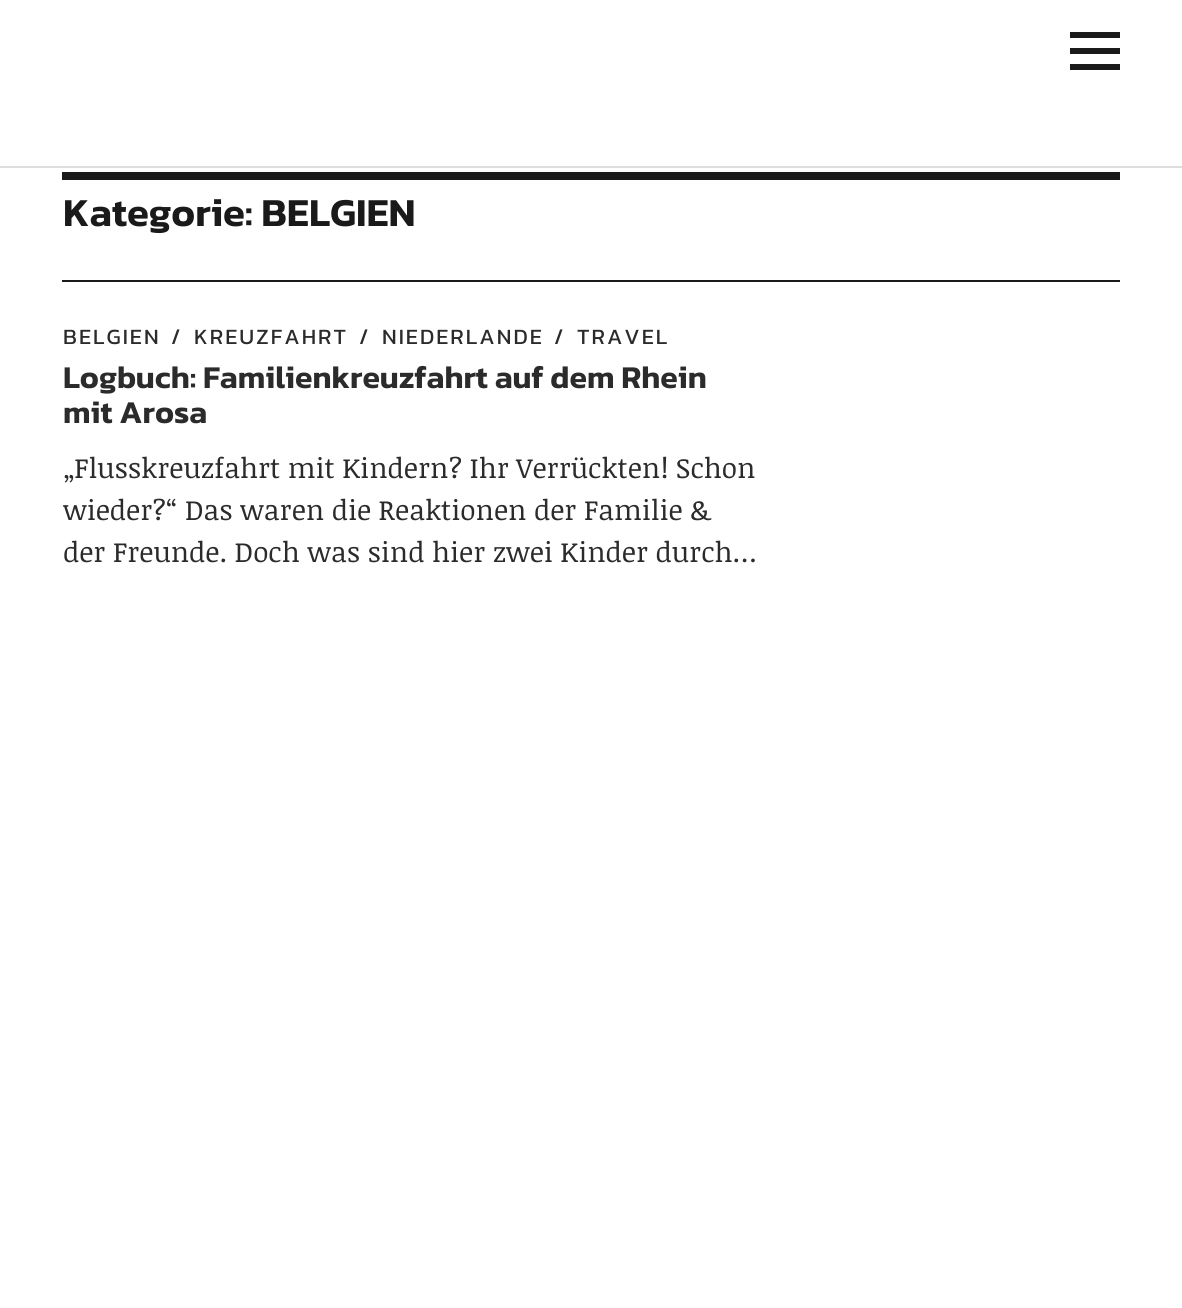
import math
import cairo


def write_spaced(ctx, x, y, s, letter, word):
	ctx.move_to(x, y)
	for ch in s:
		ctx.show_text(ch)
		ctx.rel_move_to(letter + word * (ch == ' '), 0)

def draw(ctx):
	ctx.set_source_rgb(1, 1, 1)
	ctx.paint()
	ctx.set_source_rgb(0.867, 0.867, 0.867)
	ctx.rectangle(0, 166, 1182, 2)
	ctx.fill()
	ctx.set_source_rgb(0.102, 0.102, 0.102)
	ctx.new_path()
	ctx.move_to(1070, 70)
	ctx.line_to(1070, 64)
	ctx.line_to(1120, 64)
	ctx.line_to(1120, 70)
	ctx.close_path()
	ctx.move_to(1070, 32)
	ctx.line_to(1120, 32)
	ctx.line_to(1120, 38)
	ctx.line_to(1070, 38)
	ctx.close_path()
	ctx.move_to(1070, 54)
	ctx.line_to(1070, 48)
	ctx.line_to(1120, 48)
	ctx.line_to(1120, 54)
	ctx.close_path()
	ctx.fill()
	ctx.rectangle(62, 172, 1058, 8)
	ctx.fill()
	ctx.select_font_face('Kanit SemiBold')
	ctx.set_font_size(40)
	ctx.move_to(63, 226)
	ctx.show_text('Kategorie: BELGIEN')
	ctx.rectangle(62, 280, 1058, 2)
	ctx.fill()
	ctx.select_font_face('Kanit')
	ctx.set_font_size(22)
	ctx.set_source_rgb(0.169, 0.169, 0.169)
	for x, y, s in [
		(63, 344, 'BELGIEN'),
		(171, 344, '/'),
		(194, 344, 'KREUZFAHRT'),
		(359, 344, '/'),
		(382, 344, 'NIEDERLANDE'),
		(554, 344, '/'),
		(577, 344, 'TRAVEL'),
	]:
		write_spaced(ctx, x, y, s, 2, 0)
	ctx.select_font_face('Kanit SemiBold')
	ctx.set_font_size(32)
	ctx.move_to(63, 388)
	ctx.show_text('Logbuch: Familienkreuzfahrt auf dem Rhein')
	ctx.move_to(63, 423)
	ctx.show_text('mit Arosa')
	ctx.select_font_face('Noticia Text')
	ctx.set_font_size(28)
	for x, y, s in [
		(63, 478, '„Flusskreuzfahrt mit Kindern? Ihr Verrückten! Schon'),
		(63, 520, 'wieder?“ Das waren die Reaktionen der Familie &'),
		(63, 562, 'der Freunde. Doch was sind hier zwei Kinder durch…'),
	]:
		ctx.move_to(x, y)
		ctx.show_text(s)


surface = cairo.ImageSurface(cairo.FORMAT_RGB24, 1182, 1308)
ctx = cairo.Context(surface)
options = cairo.FontOptions()
options.set_hint_metrics(cairo.HINT_METRICS_OFF)
options.set_hint_style(cairo.HINT_STYLE_NONE)
ctx.set_font_options(options)
ctx.set_miter_limit(4)
draw(ctx)
surface.write_to_png('image.png')
